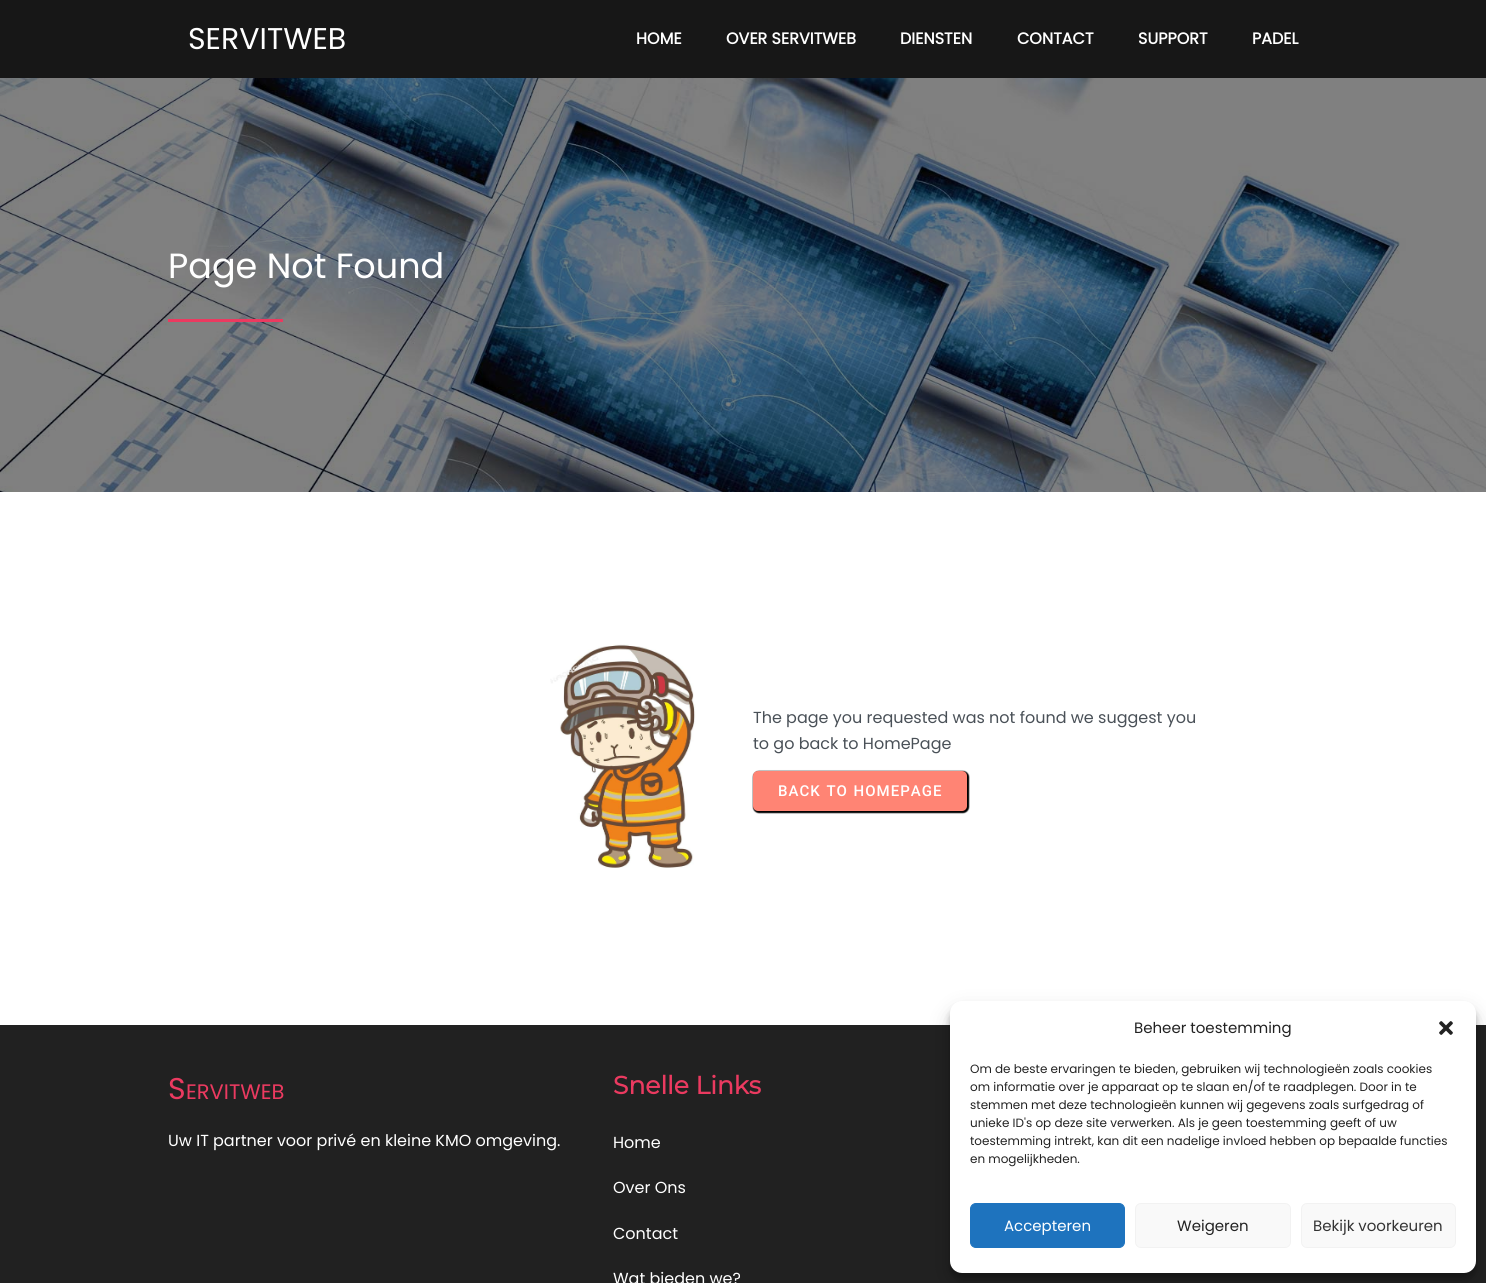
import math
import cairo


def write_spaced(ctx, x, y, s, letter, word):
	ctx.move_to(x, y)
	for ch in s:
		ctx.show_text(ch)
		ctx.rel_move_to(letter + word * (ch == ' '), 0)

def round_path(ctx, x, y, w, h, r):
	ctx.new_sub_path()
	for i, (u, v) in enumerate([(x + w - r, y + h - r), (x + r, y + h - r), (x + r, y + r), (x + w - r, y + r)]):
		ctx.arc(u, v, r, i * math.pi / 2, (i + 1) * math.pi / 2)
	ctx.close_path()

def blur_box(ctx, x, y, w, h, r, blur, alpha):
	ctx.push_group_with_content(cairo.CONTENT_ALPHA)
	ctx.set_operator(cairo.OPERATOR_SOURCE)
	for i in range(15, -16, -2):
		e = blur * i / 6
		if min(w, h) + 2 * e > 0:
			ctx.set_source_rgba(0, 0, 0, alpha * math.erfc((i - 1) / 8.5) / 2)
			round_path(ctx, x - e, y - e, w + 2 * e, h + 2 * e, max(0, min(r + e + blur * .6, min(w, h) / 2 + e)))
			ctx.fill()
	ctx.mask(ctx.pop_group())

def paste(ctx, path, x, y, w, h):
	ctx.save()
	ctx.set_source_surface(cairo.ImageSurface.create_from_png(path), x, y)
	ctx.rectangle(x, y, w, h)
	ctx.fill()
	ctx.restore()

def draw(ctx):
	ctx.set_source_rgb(1, 1, 1)
	ctx.paint()
	ctx.set_source_rgb(0.09, 0.09, 0.09)
	ctx.rectangle(0, 0, 1486, 78)
	ctx.fill()
	ctx.select_font_face('Poppins')
	ctx.set_font_size(30)
	ctx.set_source_rgb(1, 1, 1)
	ctx.move_to(188, 49)
	ctx.show_text('SERVITWEB')
	ctx.select_font_face('Poppins', cairo.FONT_SLANT_NORMAL, cairo.FONT_WEIGHT_BOLD)
	ctx.set_font_size(16)
	for x, y, s in [
		(636, 44, 'HOME'),
		(726, 44, 'OVER SERVITWEB'),
		(900, 44, 'DIENSTEN'),
		(1017, 44, 'CONTACT'),
		(1138, 44, 'SUPPORT'),
		(1252, 44, 'PADEL'),
	]:
		ctx.move_to(x, y)
		ctx.show_text(s)
	paste(ctx, 'media/1.png', 0, 78, 1486, 414)
	ctx.select_font_face('Poppins')
	ctx.set_font_size(35)
	ctx.move_to(168, 278)
	ctx.show_text('Page Not Found')
	ctx.set_source_rgb(0.918, 0.227, 0.376)
	ctx.rectangle(168, 319, 115, 3)
	ctx.fill()
	paste(ctx, 'media/2.png', 550, 644, 146, 224)
	ctx.set_font_size(16)
	ctx.set_source_rgb(0.286, 0.314, 0.341)
	ctx.move_to(753, 723)
	ctx.show_text('The page you requested was not found we suggest you')
	ctx.move_to(753, 749)
	ctx.show_text('to go back to HomePage')
	ctx.set_source_rgb(0, 0, 0)
	blur_box(ctx, 753, 771, 216, 42, 6, 0.5, 1)
	ctx.set_source_rgb(1, 0.518, 0.455)
	round_path(ctx, 753, 771, 214, 40, 5)
	ctx.fill()
	ctx.select_font_face('Roboto Medium')
	ctx.set_font_size(15)
	ctx.set_source_rgb(1, 1, 1)
	write_spaced(ctx, 778, 796, 'BACK TO HOMEPAGE', 1, 1)
	ctx.set_source_rgb(0.129, 0.129, 0.129)
	ctx.rectangle(0, 1025, 1486, 258)
	ctx.fill()
	ctx.select_font_face('Poppins')
	ctx.set_font_size(30)
	ctx.set_source_rgb(0.918, 0.227, 0.376)
	ctx.move_to(168, 1099)
	ctx.show_text('S')
	ctx.set_font_size(21)
	ctx.move_to(186, 1099)
	ctx.show_text('ERVITWEB')
	ctx.set_font_size(16)
	ctx.set_source_rgb(1, 1, 1)
	ctx.move_to(168, 1146)
	ctx.show_text('Uw IT partner voor privé en kleine KMO omgeving.')
	ctx.select_font_face('Montserrat', cairo.FONT_SLANT_NORMAL, cairo.FONT_WEIGHT_BOLD)
	ctx.set_font_size(25)
	ctx.set_source_rgb(0.918, 0.227, 0.376)
	ctx.move_to(613, 1094)
	ctx.show_text('Snelle Links')
	ctx.select_font_face('Poppins')
	ctx.set_font_size(16)
	ctx.set_source_rgb(1, 1, 1)
	for x, y, s in [
		(613, 1148, 'Home'),
		(613, 1193, 'Over Ons'),
		(613, 1239, 'Contact'),
		(613, 1284, 'Wat bieden we?'),
	]:
		ctx.move_to(x, y)
		ctx.show_text(s)
	ctx.set_source_rgb(0, 0, 0)
	blur_box(ctx, 950, 1007, 526, 272, 12, 3, 0.23)
	blur_box(ctx, 950, 1011, 526, 272, 12, 10, 0.19)
	ctx.set_source_rgb(1, 1, 1)
	round_path(ctx, 950, 1001, 526, 272, 12)
	ctx.fill()
	ctx.set_font_size(15)
	ctx.set_source_rgb(0.133, 0.133, 0.133)
	ctx.move_to(1134, 1033)
	ctx.show_text('Beheer toestemming')
	paste(ctx, 'media/3.png', 1439, 1021, 14, 14)
	ctx.set_font_size(12)
	for x, y, s in [
		(970, 1073, 'Om de beste ervaringen te bieden, gebruiken wij technologieën zoals cookies'),
		(970, 1091, 'om informatie over je apparaat op te slaan en/of te raadplegen. Door in te'),
		(970, 1109, 'stemmen met deze technologieën kunnen wij gegevens zoals surfgedrag of'),
		(970, 1127, 'unieke ID\'s op deze site verwerken. Als je geen toestemming geeft of uw'),
		(970, 1145, 'toestemming intrekt, kan dit een nadelige invloed hebben op bepaalde functies'),
		(970, 1163, 'en mogelijkheden.'),
	]:
		ctx.move_to(x, y)
		ctx.show_text(s)
	ctx.set_source_rgb(0.118, 0.451, 0.745)
	round_path(ctx, 970.5, 1203.5, 154, 44, 5.5)
	ctx.fill_preserve()
	ctx.set_line_width(1)
	ctx.stroke()
	ctx.set_font_size(15)
	ctx.set_source_rgb(1, 1, 1)
	ctx.move_to(1004, 1231)
	ctx.show_text('Accepteren')
	ctx.set_source_rgb(0.976, 0.976, 0.976)
	round_path(ctx, 1135.5, 1203.5, 155, 44, 5.5)
	ctx.fill_preserve()
	ctx.set_source_rgb(0.949, 0.949, 0.949)
	ctx.stroke()
	ctx.set_source_rgb(0.133, 0.133, 0.133)
	ctx.move_to(1177, 1231)
	ctx.show_text('Weigeren')
	ctx.set_source_rgb(0.976, 0.976, 0.976)
	round_path(ctx, 1301.5, 1203.5, 154, 44, 5.5)
	ctx.fill_preserve()
	ctx.set_source_rgb(0.949, 0.949, 0.949)
	ctx.stroke()
	ctx.set_source_rgb(0.2, 0.2, 0.2)
	ctx.move_to(1313, 1231)
	ctx.show_text('Bekijk voorkeuren')


surface = cairo.ImageSurface(cairo.FORMAT_RGB24, 1486, 1283)
ctx = cairo.Context(surface)
options = cairo.FontOptions()
options.set_hint_metrics(cairo.HINT_METRICS_OFF)
options.set_hint_style(cairo.HINT_STYLE_NONE)
ctx.set_font_options(options)
ctx.set_miter_limit(4)
draw(ctx)
surface.write_to_png('image.png')
